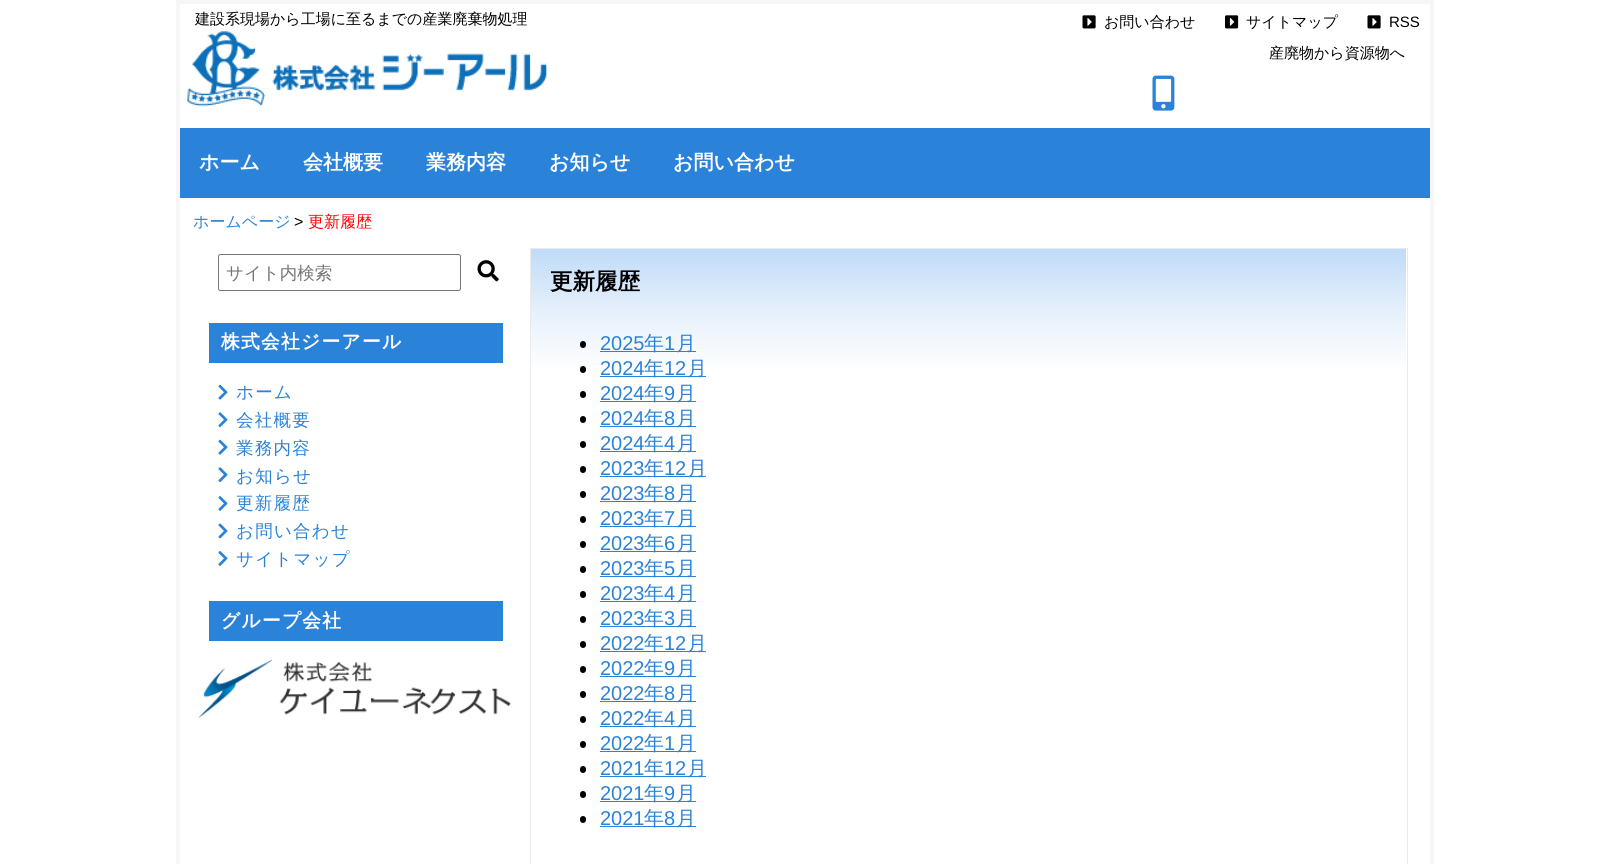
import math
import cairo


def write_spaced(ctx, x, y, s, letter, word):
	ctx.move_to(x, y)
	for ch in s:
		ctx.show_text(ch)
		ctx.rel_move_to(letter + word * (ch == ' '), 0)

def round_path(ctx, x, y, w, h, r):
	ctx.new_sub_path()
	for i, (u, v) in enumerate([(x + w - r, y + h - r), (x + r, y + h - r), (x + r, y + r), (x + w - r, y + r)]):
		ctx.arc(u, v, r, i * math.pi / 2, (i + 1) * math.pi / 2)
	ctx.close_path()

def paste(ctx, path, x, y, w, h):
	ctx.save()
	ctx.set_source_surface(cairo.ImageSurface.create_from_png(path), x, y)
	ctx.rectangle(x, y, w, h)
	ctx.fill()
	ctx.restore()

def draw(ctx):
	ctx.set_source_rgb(1, 1, 1)
	ctx.paint()
	ctx.rectangle(178, 2, 1254, 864)
	ctx.set_source_rgb(0.961, 0.961, 0.961)
	ctx.set_line_width(4)
	ctx.stroke()
	ctx.select_font_face('WenQuanYi Zen Hei Medium')
	ctx.set_font_size(15)
	ctx.set_source_rgb(0, 0, 0)
	ctx.move_to(195, 24)
	ctx.show_text('建設系現場から工場に至るまでの産業廃棄物処理')
	paste(ctx, 'media/1.png', 1082, 15, 14, 14)
	ctx.move_to(1104, 27)
	ctx.show_text('お問い合わせ')
	paste(ctx, 'media/2.png', 1225, 15, 14, 14)
	ctx.move_to(1246, 27)
	ctx.show_text('サイトマップ')
	paste(ctx, 'media/1.png', 1367, 15, 14, 14)
	ctx.select_font_face('Liberation Sans')
	ctx.move_to(1389, 27)
	ctx.show_text('RSS')
	ctx.select_font_face('WenQuanYi Zen Hei Medium')
	ctx.move_to(1269, 58)
	ctx.show_text('産廃物から資源物へ')
	paste(ctx, 'media/3.png', 1152, 75, 23, 36)
	paste(ctx, 'media/4.png', 187, 31, 360, 76)
	ctx.set_source_rgb(0.169, 0.51, 0.851)
	ctx.rectangle(180, 128, 1250, 70)
	ctx.fill()
	ctx.select_font_face('WenQuanYi Zen Hei', cairo.FONT_SLANT_NORMAL, cairo.FONT_WEIGHT_BOLD)
	ctx.set_font_size(20)
	ctx.set_source_rgb(1, 1, 1)
	for x, y, s in [
		(199, 169, 'ホーム'),
		(303, 169, '会社概要'),
		(426, 169, '業務内容'),
		(549, 169, 'お知らせ'),
		(673, 169, 'お問い合わせ'),
	]:
		ctx.move_to(x, y)
		ctx.show_text(s)
	ctx.select_font_face('WenQuanYi Zen Hei Medium')
	ctx.set_font_size(16)
	ctx.set_source_rgb(0.169, 0.51, 0.851)
	ctx.move_to(193, 227)
	ctx.show_text('ホームページ')
	ctx.select_font_face('Liberation Sans')
	ctx.set_source_rgb(0, 0, 0)
	ctx.move_to(294, 227)
	ctx.show_text('>')
	ctx.select_font_face('WenQuanYi Zen Hei Medium')
	ctx.set_source_rgb(1, 0, 0)
	ctx.move_to(308, 227)
	ctx.show_text('更新履歴')
	round_path(ctx, 218.5, 254.5, 242, 36, 2)
	ctx.set_source_rgb(0.463, 0.463, 0.463)
	ctx.set_line_width(1)
	ctx.stroke()
	ctx.set_font_size(17.5)
	ctx.set_source_rgb(0.459, 0.459, 0.459)
	ctx.move_to(226, 279)
	ctx.show_text('サイト内検索')
	paste(ctx, 'media/5.png', 477, 260, 22, 22)
	ctx.set_source_rgb(0.169, 0.51, 0.851)
	ctx.rectangle(209, 323, 294, 40)
	ctx.fill()
	ctx.select_font_face('WenQuanYi Zen Hei', cairo.FONT_SLANT_NORMAL, cairo.FONT_WEIGHT_BOLD)
	ctx.set_font_size(18.75)
	ctx.set_source_rgb(1, 1, 1)
	write_spaced(ctx, 221, 348, '株式会社ジーアール', 1.25, 0)
	paste(ctx, 'media/6.png', 218, 384, 10, 16)
	ctx.select_font_face('WenQuanYi Zen Hei Medium')
	ctx.set_font_size(17.5)
	ctx.set_source_rgb(0.169, 0.51, 0.851)
	write_spaced(ctx, 236, 398, 'ホーム', 1.25, 0)
	paste(ctx, 'media/7.png', 218, 412, 10, 16)
	write_spaced(ctx, 236, 426, '会社概要', 1.25, 0)
	paste(ctx, 'media/6.png', 218, 439, 10, 16)
	write_spaced(ctx, 236, 454, '業務内容', 1.25, 0)
	paste(ctx, 'media/7.png', 218, 467, 10, 16)
	write_spaced(ctx, 236, 482, 'お知らせ', 1.25, 0)
	paste(ctx, 'media/8.png', 218, 496, 10, 15)
	write_spaced(ctx, 236, 509, '更新履歴', 1.25, 0)
	paste(ctx, 'media/9.png', 218, 523, 10, 16)
	write_spaced(ctx, 236, 537, 'お問い合わせ', 1.25, 0)
	paste(ctx, 'media/8.png', 218, 551, 10, 15)
	write_spaced(ctx, 236, 565, 'サイトマップ', 1.25, 0)
	ctx.rectangle(209, 601, 294, 40)
	ctx.fill()
	ctx.select_font_face('WenQuanYi Zen Hei', cairo.FONT_SLANT_NORMAL, cairo.FONT_WEIGHT_BOLD)
	ctx.set_font_size(18.75)
	ctx.set_source_rgb(1, 1, 1)
	write_spaced(ctx, 221, 627, 'グループ会社', 1.25, 0)
	paste(ctx, 'media/10.png', 198, 660, 313, 58)
	ctx.rectangle(530.5, 248.5, 877, 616)
	ctx.set_source_rgb(0.922, 0.918, 0.918)
	ctx.stroke()
	gradient = cairo.LinearGradient(969, 249, 969, 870)
	gradient.add_color_stop_rgba(0, 0.749, 0.859, 0.973, 1)
	gradient.add_color_stop_rgba(0.1, 0.902, 0.941, 0.984, 1)
	gradient.add_color_stop_rgba(0.2, 1, 1, 1, 1)
	ctx.set_source(gradient)
	ctx.rectangle(531, 249, 875, 118)
	ctx.fill()
	ctx.set_font_size(22.5)
	ctx.set_source_rgb(0, 0, 0)
	ctx.move_to(550, 289)
	ctx.show_text('更新履歴')
	round_path(ctx, 580, 341, 6, 7, 3)
	ctx.fill()
	ctx.select_font_face('Liberation Sans')
	ctx.set_font_size(20)
	ctx.set_source_rgb(0.169, 0.51, 0.851)
	ctx.move_to(600, 350)
	ctx.show_text('2025')
	ctx.rectangle(600, 351, 96, 1)
	ctx.fill()
	ctx.select_font_face('WenQuanYi Zen Hei Medium')
	ctx.move_to(644, 350)
	ctx.show_text('年')
	ctx.select_font_face('Liberation Sans')
	ctx.move_to(664, 350)
	ctx.show_text('1')
	ctx.select_font_face('WenQuanYi Zen Hei Medium')
	ctx.move_to(676, 350)
	ctx.show_text('月')
	ctx.set_source_rgb(0, 0, 0)
	round_path(ctx, 580, 366, 6, 7, 3)
	ctx.fill()
	ctx.select_font_face('Liberation Sans')
	ctx.set_source_rgb(0.169, 0.51, 0.851)
	ctx.move_to(600, 375)
	ctx.show_text('2024')
	ctx.rectangle(600, 376, 106, 1)
	ctx.fill()
	ctx.select_font_face('WenQuanYi Zen Hei Medium')
	ctx.move_to(644, 375)
	ctx.show_text('年')
	ctx.select_font_face('Liberation Sans')
	ctx.move_to(664, 375)
	ctx.show_text('12')
	ctx.select_font_face('WenQuanYi Zen Hei Medium')
	ctx.move_to(687, 375)
	ctx.show_text('月')
	ctx.set_source_rgb(0, 0, 0)
	round_path(ctx, 580, 391, 6, 7, 3)
	ctx.fill()
	ctx.select_font_face('Liberation Sans')
	ctx.set_source_rgb(0.169, 0.51, 0.851)
	ctx.move_to(600, 400)
	ctx.show_text('2024')
	ctx.rectangle(600, 401, 96, 1)
	ctx.fill()
	ctx.select_font_face('WenQuanYi Zen Hei Medium')
	ctx.move_to(644, 400)
	ctx.show_text('年')
	ctx.select_font_face('Liberation Sans')
	ctx.move_to(664, 400)
	ctx.show_text('9')
	ctx.select_font_face('WenQuanYi Zen Hei Medium')
	ctx.move_to(676, 400)
	ctx.show_text('月')
	ctx.set_source_rgb(0, 0, 0)
	round_path(ctx, 580, 416, 6, 7, 3)
	ctx.fill()
	ctx.select_font_face('Liberation Sans')
	ctx.set_source_rgb(0.169, 0.51, 0.851)
	ctx.move_to(600, 425)
	ctx.show_text('2024')
	ctx.rectangle(600, 426, 96, 1)
	ctx.fill()
	ctx.select_font_face('WenQuanYi Zen Hei Medium')
	ctx.move_to(644, 425)
	ctx.show_text('年')
	ctx.select_font_face('Liberation Sans')
	ctx.move_to(664, 425)
	ctx.show_text('8')
	ctx.select_font_face('WenQuanYi Zen Hei Medium')
	ctx.move_to(676, 425)
	ctx.show_text('月')
	ctx.set_source_rgb(0, 0, 0)
	round_path(ctx, 580, 441, 6, 7, 3)
	ctx.fill()
	ctx.select_font_face('Liberation Sans')
	ctx.set_source_rgb(0.169, 0.51, 0.851)
	ctx.move_to(600, 450)
	ctx.show_text('2024')
	ctx.rectangle(600, 451, 96, 1)
	ctx.fill()
	ctx.select_font_face('WenQuanYi Zen Hei Medium')
	ctx.move_to(644, 450)
	ctx.show_text('年')
	ctx.select_font_face('Liberation Sans')
	ctx.move_to(664, 450)
	ctx.show_text('4')
	ctx.select_font_face('WenQuanYi Zen Hei Medium')
	ctx.move_to(676, 450)
	ctx.show_text('月')
	ctx.set_source_rgb(0, 0, 0)
	round_path(ctx, 580, 466, 6, 7, 3)
	ctx.fill()
	ctx.select_font_face('Liberation Sans')
	ctx.set_source_rgb(0.169, 0.51, 0.851)
	ctx.move_to(600, 475)
	ctx.show_text('2023')
	ctx.rectangle(600, 476, 106, 1)
	ctx.fill()
	ctx.select_font_face('WenQuanYi Zen Hei Medium')
	ctx.move_to(644, 475)
	ctx.show_text('年')
	ctx.select_font_face('Liberation Sans')
	ctx.move_to(664, 475)
	ctx.show_text('12')
	ctx.select_font_face('WenQuanYi Zen Hei Medium')
	ctx.move_to(687, 475)
	ctx.show_text('月')
	ctx.set_source_rgb(0, 0, 0)
	round_path(ctx, 580, 491, 6, 7, 3)
	ctx.fill()
	ctx.select_font_face('Liberation Sans')
	ctx.set_source_rgb(0.169, 0.51, 0.851)
	ctx.move_to(600, 500)
	ctx.show_text('2023')
	ctx.rectangle(600, 501, 96, 1)
	ctx.fill()
	ctx.select_font_face('WenQuanYi Zen Hei Medium')
	ctx.move_to(644, 500)
	ctx.show_text('年')
	ctx.select_font_face('Liberation Sans')
	ctx.move_to(664, 500)
	ctx.show_text('8')
	ctx.select_font_face('WenQuanYi Zen Hei Medium')
	ctx.move_to(676, 500)
	ctx.show_text('月')
	ctx.set_source_rgb(0, 0, 0)
	round_path(ctx, 580, 516, 6, 7, 3)
	ctx.fill()
	ctx.select_font_face('Liberation Sans')
	ctx.set_source_rgb(0.169, 0.51, 0.851)
	ctx.move_to(600, 525)
	ctx.show_text('2023')
	ctx.rectangle(600, 526, 96, 1)
	ctx.fill()
	ctx.select_font_face('WenQuanYi Zen Hei Medium')
	ctx.move_to(644, 525)
	ctx.show_text('年')
	ctx.select_font_face('Liberation Sans')
	ctx.move_to(664, 525)
	ctx.show_text('7')
	ctx.select_font_face('WenQuanYi Zen Hei Medium')
	ctx.move_to(676, 525)
	ctx.show_text('月')
	ctx.set_source_rgb(0, 0, 0)
	round_path(ctx, 580, 541, 6, 7, 3)
	ctx.fill()
	ctx.select_font_face('Liberation Sans')
	ctx.set_source_rgb(0.169, 0.51, 0.851)
	ctx.move_to(600, 550)
	ctx.show_text('2023')
	ctx.rectangle(600, 551, 96, 1)
	ctx.fill()
	ctx.select_font_face('WenQuanYi Zen Hei Medium')
	ctx.move_to(644, 550)
	ctx.show_text('年')
	ctx.select_font_face('Liberation Sans')
	ctx.move_to(664, 550)
	ctx.show_text('6')
	ctx.select_font_face('WenQuanYi Zen Hei Medium')
	ctx.move_to(676, 550)
	ctx.show_text('月')
	ctx.set_source_rgb(0, 0, 0)
	round_path(ctx, 580, 566, 6, 7, 3)
	ctx.fill()
	ctx.select_font_face('Liberation Sans')
	ctx.set_source_rgb(0.169, 0.51, 0.851)
	ctx.move_to(600, 575)
	ctx.show_text('2023')
	ctx.rectangle(600, 576, 96, 1)
	ctx.fill()
	ctx.select_font_face('WenQuanYi Zen Hei Medium')
	ctx.move_to(644, 575)
	ctx.show_text('年')
	ctx.select_font_face('Liberation Sans')
	ctx.move_to(664, 575)
	ctx.show_text('5')
	ctx.select_font_face('WenQuanYi Zen Hei Medium')
	ctx.move_to(676, 575)
	ctx.show_text('月')
	ctx.set_source_rgb(0, 0, 0)
	round_path(ctx, 580, 591, 6, 7, 3)
	ctx.fill()
	ctx.select_font_face('Liberation Sans')
	ctx.set_source_rgb(0.169, 0.51, 0.851)
	ctx.move_to(600, 600)
	ctx.show_text('2023')
	ctx.rectangle(600, 601, 96, 1)
	ctx.fill()
	ctx.select_font_face('WenQuanYi Zen Hei Medium')
	ctx.move_to(644, 600)
	ctx.show_text('年')
	ctx.select_font_face('Liberation Sans')
	ctx.move_to(664, 600)
	ctx.show_text('4')
	ctx.select_font_face('WenQuanYi Zen Hei Medium')
	ctx.move_to(676, 600)
	ctx.show_text('月')
	ctx.set_source_rgb(0, 0, 0)
	round_path(ctx, 580, 616, 6, 7, 3)
	ctx.fill()
	ctx.select_font_face('Liberation Sans')
	ctx.set_source_rgb(0.169, 0.51, 0.851)
	ctx.move_to(600, 625)
	ctx.show_text('2023')
	ctx.rectangle(600, 626, 96, 1)
	ctx.fill()
	ctx.select_font_face('WenQuanYi Zen Hei Medium')
	ctx.move_to(644, 625)
	ctx.show_text('年')
	ctx.select_font_face('Liberation Sans')
	ctx.move_to(664, 625)
	ctx.show_text('3')
	ctx.select_font_face('WenQuanYi Zen Hei Medium')
	ctx.move_to(676, 625)
	ctx.show_text('月')
	ctx.set_source_rgb(0, 0, 0)
	round_path(ctx, 580, 641, 6, 7, 3)
	ctx.fill()
	ctx.select_font_face('Liberation Sans')
	ctx.set_source_rgb(0.169, 0.51, 0.851)
	ctx.move_to(600, 650)
	ctx.show_text('2022')
	ctx.rectangle(600, 651, 106, 1)
	ctx.fill()
	ctx.select_font_face('WenQuanYi Zen Hei Medium')
	ctx.move_to(644, 650)
	ctx.show_text('年')
	ctx.select_font_face('Liberation Sans')
	ctx.move_to(664, 650)
	ctx.show_text('12')
	ctx.select_font_face('WenQuanYi Zen Hei Medium')
	ctx.move_to(687, 650)
	ctx.show_text('月')
	ctx.set_source_rgb(0, 0, 0)
	round_path(ctx, 580, 666, 6, 7, 3)
	ctx.fill()
	ctx.select_font_face('Liberation Sans')
	ctx.set_source_rgb(0.169, 0.51, 0.851)
	ctx.move_to(600, 675)
	ctx.show_text('2022')
	ctx.rectangle(600, 676, 96, 1)
	ctx.fill()
	ctx.select_font_face('WenQuanYi Zen Hei Medium')
	ctx.move_to(644, 675)
	ctx.show_text('年')
	ctx.select_font_face('Liberation Sans')
	ctx.move_to(664, 675)
	ctx.show_text('9')
	ctx.select_font_face('WenQuanYi Zen Hei Medium')
	ctx.move_to(676, 675)
	ctx.show_text('月')
	ctx.set_source_rgb(0, 0, 0)
	round_path(ctx, 580, 691, 6, 7, 3)
	ctx.fill()
	ctx.select_font_face('Liberation Sans')
	ctx.set_source_rgb(0.169, 0.51, 0.851)
	ctx.move_to(600, 700)
	ctx.show_text('2022')
	ctx.rectangle(600, 701, 96, 1)
	ctx.fill()
	ctx.select_font_face('WenQuanYi Zen Hei Medium')
	ctx.move_to(644, 700)
	ctx.show_text('年')
	ctx.select_font_face('Liberation Sans')
	ctx.move_to(664, 700)
	ctx.show_text('8')
	ctx.select_font_face('WenQuanYi Zen Hei Medium')
	ctx.move_to(676, 700)
	ctx.show_text('月')
	ctx.set_source_rgb(0, 0, 0)
	round_path(ctx, 580, 716, 6, 7, 3)
	ctx.fill()
	ctx.select_font_face('Liberation Sans')
	ctx.set_source_rgb(0.169, 0.51, 0.851)
	ctx.move_to(600, 725)
	ctx.show_text('2022')
	ctx.rectangle(600, 726, 96, 1)
	ctx.fill()
	ctx.select_font_face('WenQuanYi Zen Hei Medium')
	ctx.move_to(644, 725)
	ctx.show_text('年')
	ctx.select_font_face('Liberation Sans')
	ctx.move_to(664, 725)
	ctx.show_text('4')
	ctx.select_font_face('WenQuanYi Zen Hei Medium')
	ctx.move_to(676, 725)
	ctx.show_text('月')
	ctx.set_source_rgb(0, 0, 0)
	round_path(ctx, 580, 741, 6, 7, 3)
	ctx.fill()
	ctx.select_font_face('Liberation Sans')
	ctx.set_source_rgb(0.169, 0.51, 0.851)
	ctx.move_to(600, 750)
	ctx.show_text('2022')
	ctx.rectangle(600, 751, 96, 1)
	ctx.fill()
	ctx.select_font_face('WenQuanYi Zen Hei Medium')
	ctx.move_to(644, 750)
	ctx.show_text('年')
	ctx.select_font_face('Liberation Sans')
	ctx.move_to(664, 750)
	ctx.show_text('1')
	ctx.select_font_face('WenQuanYi Zen Hei Medium')
	ctx.move_to(676, 750)
	ctx.show_text('月')
	ctx.set_source_rgb(0, 0, 0)
	round_path(ctx, 580, 766, 6, 7, 3)
	ctx.fill()
	ctx.select_font_face('Liberation Sans')
	ctx.set_source_rgb(0.169, 0.51, 0.851)
	ctx.move_to(600, 775)
	ctx.show_text('2021')
	ctx.rectangle(600, 776, 106, 1)
	ctx.fill()
	ctx.select_font_face('WenQuanYi Zen Hei Medium')
	ctx.move_to(644, 775)
	ctx.show_text('年')
	ctx.select_font_face('Liberation Sans')
	ctx.move_to(664, 775)
	ctx.show_text('12')
	ctx.select_font_face('WenQuanYi Zen Hei Medium')
	ctx.move_to(687, 775)
	ctx.show_text('月')
	ctx.set_source_rgb(0, 0, 0)
	round_path(ctx, 580, 791, 6, 7, 3)
	ctx.fill()
	ctx.select_font_face('Liberation Sans')
	ctx.set_source_rgb(0.169, 0.51, 0.851)
	ctx.move_to(600, 800)
	ctx.show_text('2021')
	ctx.rectangle(600, 801, 96, 1)
	ctx.fill()
	ctx.select_font_face('WenQuanYi Zen Hei Medium')
	ctx.move_to(644, 800)
	ctx.show_text('年')
	ctx.select_font_face('Liberation Sans')
	ctx.move_to(664, 800)
	ctx.show_text('9')
	ctx.select_font_face('WenQuanYi Zen Hei Medium')
	ctx.move_to(676, 800)
	ctx.show_text('月')
	ctx.set_source_rgb(0, 0, 0)
	round_path(ctx, 580, 816, 6, 7, 3)
	ctx.fill()
	ctx.select_font_face('Liberation Sans')
	ctx.set_source_rgb(0.169, 0.51, 0.851)
	ctx.move_to(600, 825)
	ctx.show_text('2021')
	ctx.rectangle(600, 826, 96, 1)
	ctx.fill()
	ctx.select_font_face('WenQuanYi Zen Hei Medium')
	ctx.move_to(644, 825)
	ctx.show_text('年')
	ctx.select_font_face('Liberation Sans')
	ctx.move_to(664, 825)
	ctx.show_text('8')
	ctx.select_font_face('WenQuanYi Zen Hei Medium')
	ctx.move_to(676, 825)
	ctx.show_text('月')


surface = cairo.ImageSurface(cairo.FORMAT_RGB24, 1610, 864)
ctx = cairo.Context(surface)
options = cairo.FontOptions()
options.set_hint_metrics(cairo.HINT_METRICS_OFF)
options.set_hint_style(cairo.HINT_STYLE_NONE)
ctx.set_font_options(options)
ctx.set_miter_limit(4)
draw(ctx)
surface.write_to_png('image.png')
